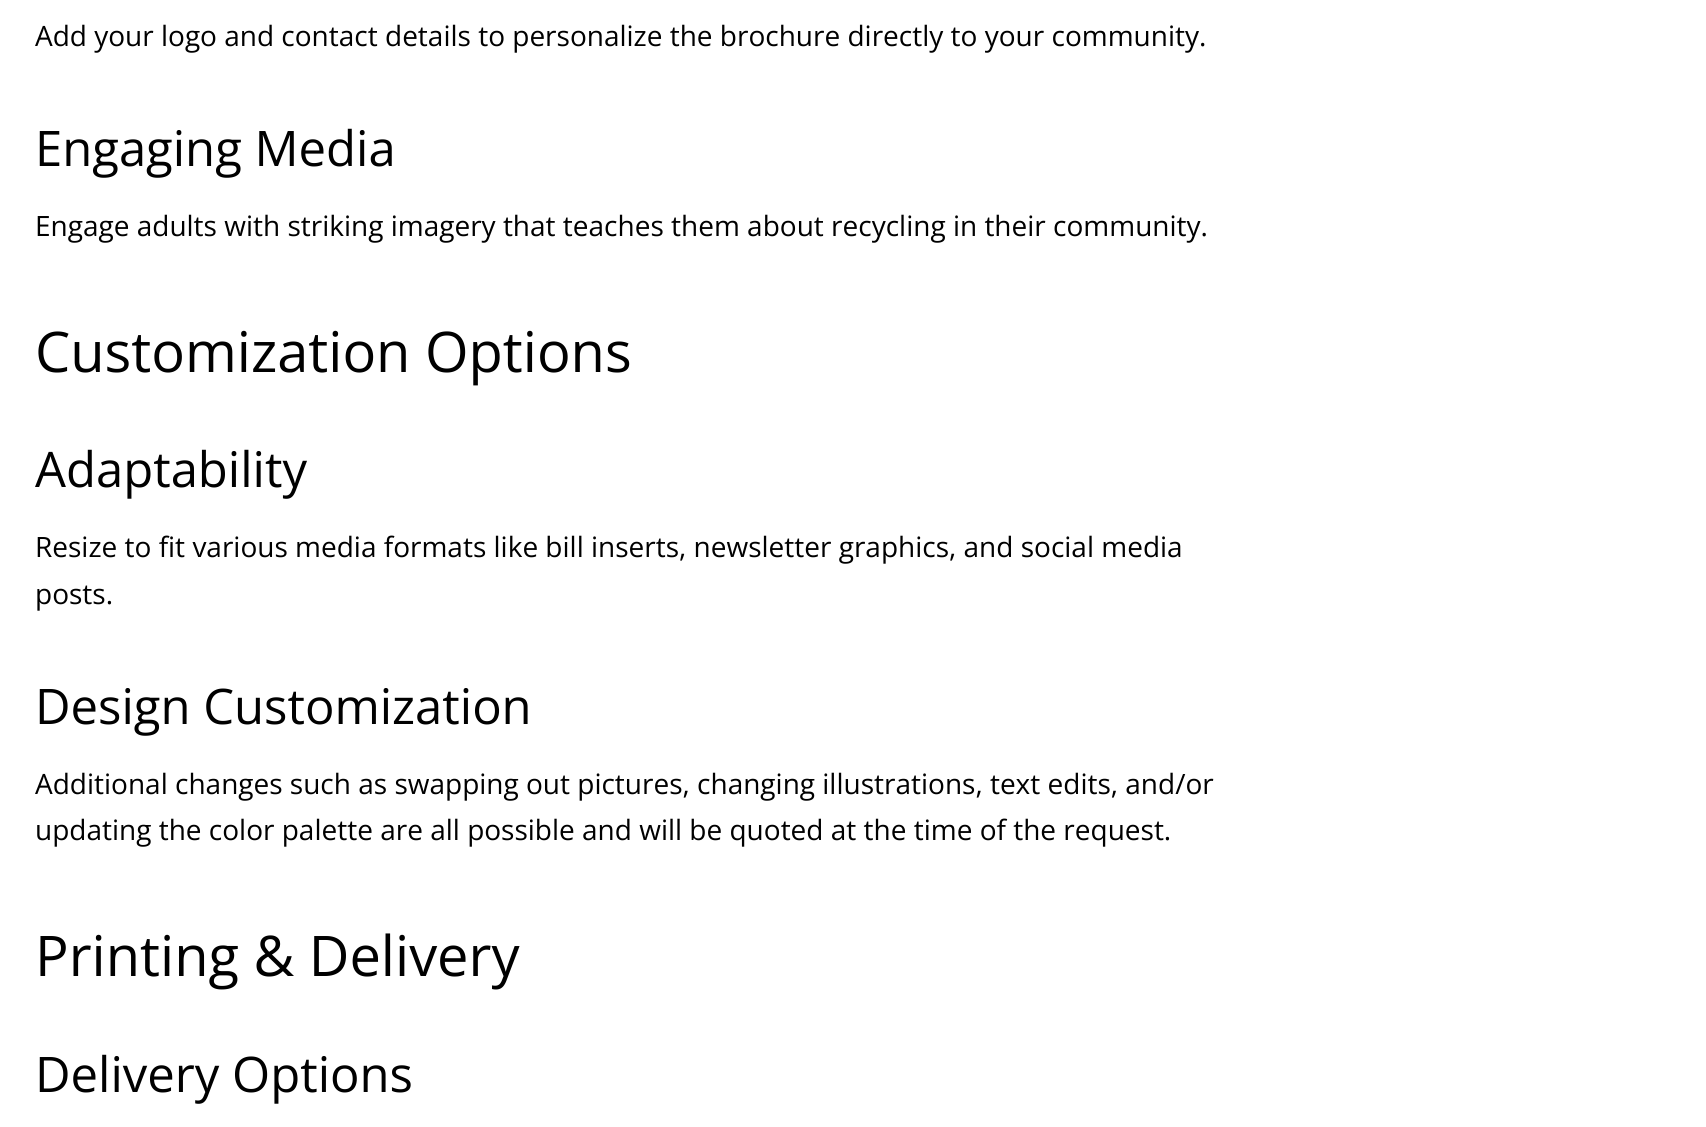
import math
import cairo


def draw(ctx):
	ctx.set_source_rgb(1, 1, 1)
	ctx.paint()
	ctx.select_font_face('Open Sans')
	ctx.set_font_size(28)
	ctx.set_source_rgb(0, 0, 0)
	ctx.move_to(35, 46)
	ctx.show_text('Add your logo and contact details to personalize the brochure directly to your community.')
	ctx.set_font_size(49)
	ctx.move_to(35, 166)
	ctx.show_text('Engaging Media')
	ctx.set_font_size(28)
	ctx.move_to(35, 236)
	ctx.show_text('Engage adults with striking imagery that teaches them about recycling in their community.')
	ctx.set_font_size(56)
	ctx.move_to(35, 372)
	ctx.show_text('Customization Options')
	ctx.set_font_size(49)
	ctx.move_to(35, 487)
	ctx.show_text('Adaptability')
	ctx.set_font_size(28)
	ctx.move_to(35, 557)
	ctx.show_text('Resize to fit various media formats like bill inserts, newsletter graphics, and social media')
	ctx.move_to(35, 604)
	ctx.show_text('posts.')
	ctx.set_font_size(49)
	ctx.move_to(35, 724)
	ctx.show_text('Design Customization')
	ctx.set_font_size(28)
	ctx.move_to(35, 794)
	ctx.show_text('Additional changes such as swapping out pictures, changing illustrations, text edits, and/or')
	ctx.move_to(35, 840)
	ctx.show_text('updating the color palette are all possible and will be quoted at the time of the request.')
	ctx.set_font_size(56)
	ctx.move_to(35, 976)
	ctx.show_text('Printing & Delivery')
	ctx.set_font_size(49)
	ctx.move_to(35, 1092)
	ctx.show_text('Delivery Options')


surface = cairo.ImageSurface(cairo.FORMAT_RGB24, 1706, 1127)
ctx = cairo.Context(surface)
options = cairo.FontOptions()
options.set_hint_metrics(cairo.HINT_METRICS_OFF)
options.set_hint_style(cairo.HINT_STYLE_NONE)
ctx.set_font_options(options)
ctx.set_miter_limit(4)
draw(ctx)
surface.write_to_png('image.png')
